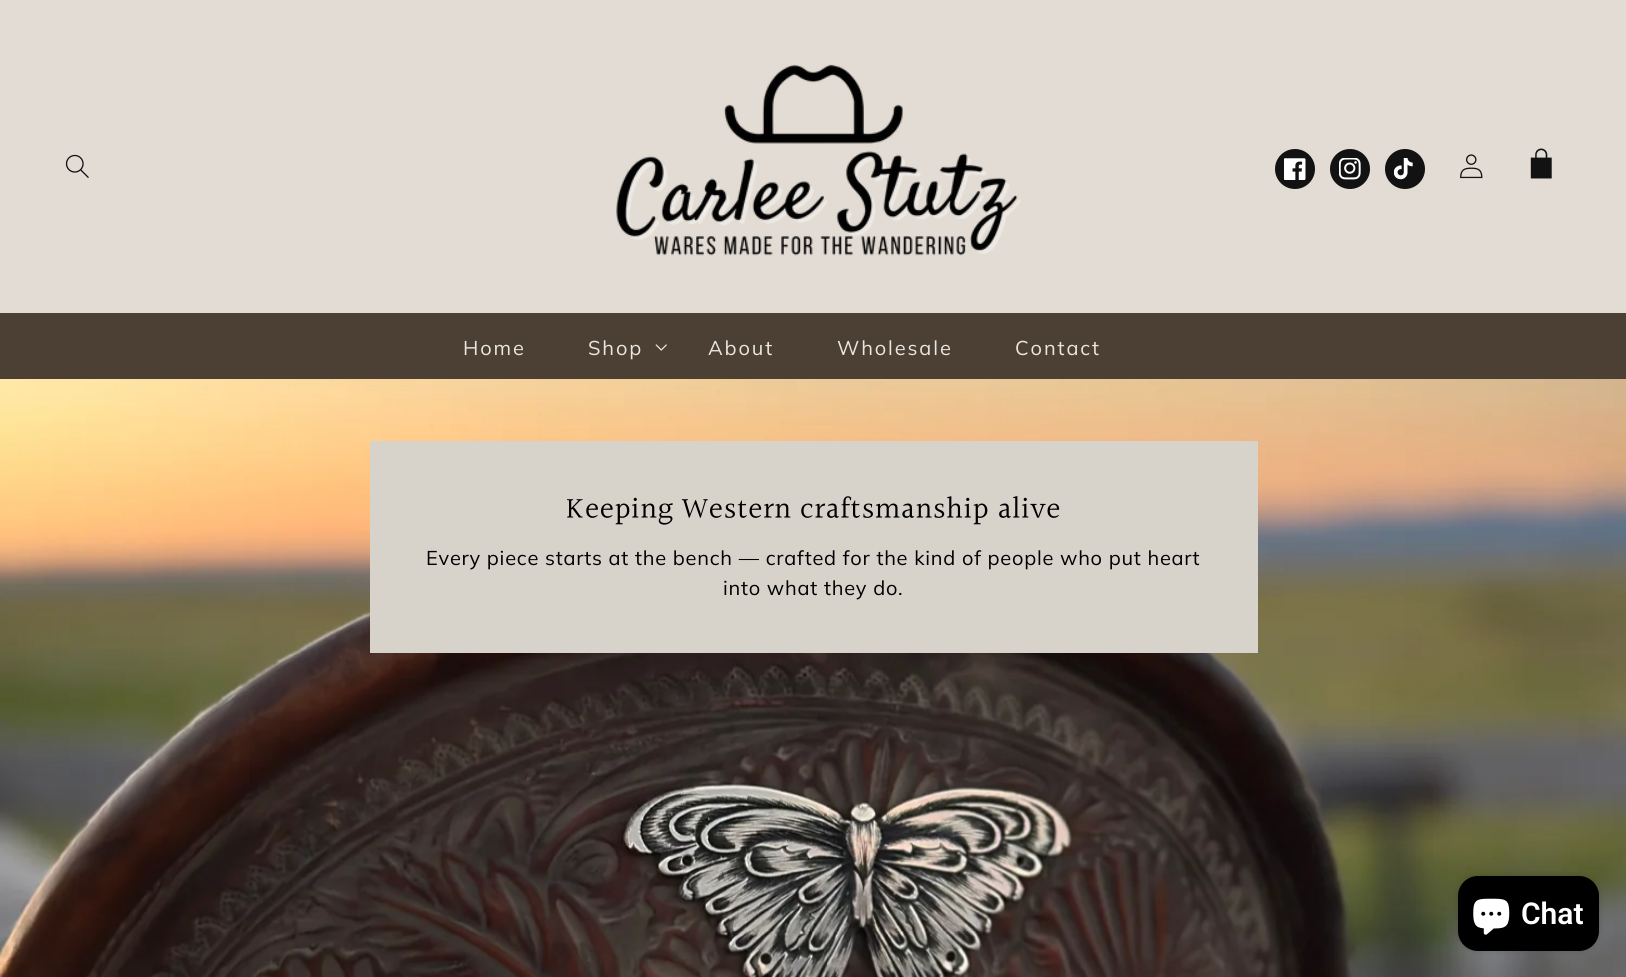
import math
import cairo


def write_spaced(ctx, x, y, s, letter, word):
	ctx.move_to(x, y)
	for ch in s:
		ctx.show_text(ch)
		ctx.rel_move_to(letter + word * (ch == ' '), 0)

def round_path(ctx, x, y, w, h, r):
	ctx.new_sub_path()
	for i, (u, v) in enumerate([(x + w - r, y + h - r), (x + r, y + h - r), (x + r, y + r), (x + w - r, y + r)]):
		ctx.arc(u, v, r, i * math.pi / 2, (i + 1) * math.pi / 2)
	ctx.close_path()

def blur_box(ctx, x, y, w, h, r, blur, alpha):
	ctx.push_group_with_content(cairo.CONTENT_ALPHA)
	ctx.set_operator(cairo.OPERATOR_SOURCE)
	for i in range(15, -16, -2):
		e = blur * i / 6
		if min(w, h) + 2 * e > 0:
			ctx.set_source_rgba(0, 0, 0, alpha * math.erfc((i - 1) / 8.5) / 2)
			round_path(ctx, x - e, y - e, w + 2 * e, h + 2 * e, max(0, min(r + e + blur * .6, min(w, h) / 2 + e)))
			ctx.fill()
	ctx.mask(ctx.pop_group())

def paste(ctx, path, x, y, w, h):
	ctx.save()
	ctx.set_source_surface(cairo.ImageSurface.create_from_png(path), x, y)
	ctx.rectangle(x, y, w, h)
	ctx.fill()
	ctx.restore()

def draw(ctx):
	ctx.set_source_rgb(1, 1, 1)
	ctx.paint()
	ctx.set_source_rgb(0.89, 0.863, 0.831)
	ctx.rectangle(0, 0, 1626, 313)
	ctx.fill()
	paste(ctx, 'media/1.png', 65, 154, 24, 24)
	paste(ctx, 'media/2.png', 616, 64, 405, 192)
	ctx.set_source_rgb(0.071, 0.071, 0.071)
	ctx.arc(1295, 169, 20, 0, 2 * math.pi)
	ctx.fill()
	paste(ctx, 'media/3.png', 1284, 158, 22, 22)
	ctx.arc(1350, 169, 20, 0, 2 * math.pi)
	ctx.fill()
	paste(ctx, 'media/4.png', 1339, 158, 22, 22)
	ctx.arc(1405, 169, 20, 0, 2 * math.pi)
	ctx.fill()
	paste(ctx, 'media/5.png', 1394, 158, 19, 22)
	paste(ctx, 'media/6.png', 1460, 154, 23, 25)
	paste(ctx, 'media/7.png', 1530, 148, 22, 31)
	ctx.set_source_rgb(0.294, 0.251, 0.2)
	ctx.rectangle(0, 313, 1626, 66)
	ctx.fill()
	ctx.select_font_face('Muli')
	ctx.set_font_size(20)
	ctx.set_source_rgb(0.918, 0.902, 0.878)
	write_spaced(ctx, 463, 355, 'Home', 1.9, 0)
	write_spaced(ctx, 588, 355, 'Shop', 1.9, 0)
	paste(ctx, 'media/8.png', 655, 344, 12, 7)
	for x, y, s in [
		(708, 355, 'About'),
		(837, 355, 'Wholesale'),
		(1015, 355, 'Contact'),
	]:
		write_spaced(ctx, x, y, s, 1.9, 0)
	paste(ctx, 'media/9.png', 0, 379, 1626, 598)
	ctx.set_source_rgb(0.843, 0.824, 0.792)
	ctx.rectangle(370, 441, 888, 212)
	ctx.fill()
	ctx.select_font_face('Halant')
	ctx.set_font_size(30)
	ctx.set_source_rgb(0, 0, 0)
	write_spaced(ctx, 566, 519, 'Keeping Western craftsmanship alive', 0.75, 0)
	ctx.select_font_face('Muli')
	ctx.set_font_size(20)
	write_spaced(ctx, 426, 565, 'Every piece starts at the bench — crafted for the kind of people who put heart', 0.75, 0)
	write_spaced(ctx, 723, 595, 'into what they do.', 0.75, 0)
	ctx.set_source_rgb(0, 0, 0)
	blur_box(ctx, 1458, 876, 141, 75, 20, 3, 0.15)
	ctx.set_source_rgb(0, 0, 0)
	round_path(ctx, 1458, 876, 141, 75, 20)
	ctx.fill()
	paste(ctx, 'media/10.png', 1473, 898, 37, 37)
	ctx.select_font_face('Roboto SemiBold')
	ctx.set_font_size(30)
	ctx.set_source_rgb(1, 1, 1)
	ctx.move_to(1521, 924)
	ctx.show_text('Chat')


surface = cairo.ImageSurface(cairo.FORMAT_RGB24, 1626, 977)
ctx = cairo.Context(surface)
options = cairo.FontOptions()
options.set_hint_metrics(cairo.HINT_METRICS_OFF)
options.set_hint_style(cairo.HINT_STYLE_NONE)
ctx.set_font_options(options)
ctx.set_miter_limit(4)
draw(ctx)
surface.write_to_png('image.png')
